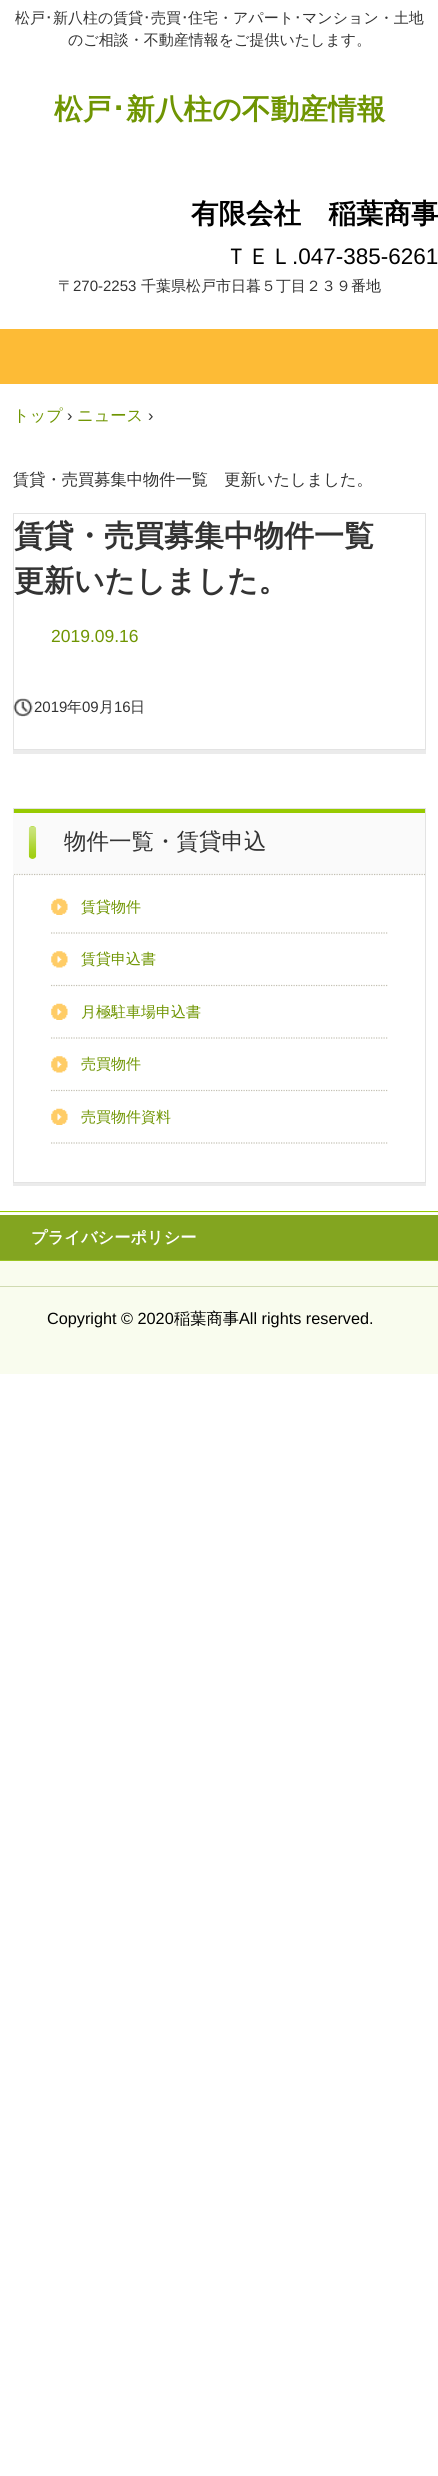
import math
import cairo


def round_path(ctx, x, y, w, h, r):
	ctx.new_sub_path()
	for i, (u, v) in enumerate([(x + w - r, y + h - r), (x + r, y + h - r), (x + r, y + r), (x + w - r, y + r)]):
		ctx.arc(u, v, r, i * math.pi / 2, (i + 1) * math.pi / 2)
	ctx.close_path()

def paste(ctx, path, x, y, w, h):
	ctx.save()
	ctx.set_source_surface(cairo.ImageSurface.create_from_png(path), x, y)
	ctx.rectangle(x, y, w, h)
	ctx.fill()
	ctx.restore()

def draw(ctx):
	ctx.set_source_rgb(1, 1, 1)
	ctx.paint()
	ctx.select_font_face('WenQuanYi Zen Hei Medium')
	ctx.set_font_size(15)
	ctx.set_source_rgb(0.2, 0.2, 0.2)
	ctx.move_to(15, 23)
	ctx.show_text('松戸')
	ctx.select_font_face('IPAPGothic')
	ctx.move_to(45, 23)
	ctx.show_text('･')
	ctx.select_font_face('WenQuanYi Zen Hei Medium')
	ctx.move_to(53, 23)
	ctx.show_text('新八柱の賃貸')
	ctx.select_font_face('IPAPGothic')
	ctx.move_to(143, 23)
	ctx.show_text('･')
	ctx.select_font_face('WenQuanYi Zen Hei Medium')
	ctx.move_to(151, 23)
	ctx.show_text('売買')
	ctx.select_font_face('IPAPGothic')
	ctx.move_to(181, 23)
	ctx.show_text('･')
	ctx.select_font_face('WenQuanYi Zen Hei Medium')
	ctx.move_to(188, 23)
	ctx.show_text('住宅・アパート')
	ctx.select_font_face('IPAPGothic')
	ctx.move_to(294, 23)
	ctx.show_text('･')
	ctx.select_font_face('WenQuanYi Zen Hei Medium')
	ctx.move_to(302, 23)
	ctx.show_text('マンション・土地')
	ctx.move_to(68, 45)
	ctx.show_text('のご相談・不動産情報をご提供いたします。')
	ctx.select_font_face('WenQuanYi Zen Hei', cairo.FONT_SLANT_NORMAL, cairo.FONT_WEIGHT_BOLD)
	ctx.set_font_size(28.75)
	ctx.set_source_rgb(0.435, 0.584, 0.008)
	ctx.move_to(54, 119)
	ctx.show_text('松戸')
	ctx.select_font_face('IPAPGothic', cairo.FONT_SLANT_NORMAL, cairo.FONT_WEIGHT_BOLD)
	ctx.move_to(111, 119)
	ctx.show_text('･')
	ctx.select_font_face('WenQuanYi Zen Hei', cairo.FONT_SLANT_NORMAL, cairo.FONT_WEIGHT_BOLD)
	ctx.move_to(126, 119)
	ctx.show_text('新八柱の不動産情報')
	ctx.set_font_size(27.5)
	ctx.set_source_rgb(0, 0, 0)
	ctx.move_to(191, 223)
	ctx.show_text('有限会社　稲葉商事')
	ctx.select_font_face('WenQuanYi Zen Hei Medium')
	ctx.set_font_size(22.5)
	ctx.move_to(225, 264)
	ctx.show_text('ＴＥＬ')
	ctx.select_font_face('Liberation Sans')
	ctx.move_to(292, 264)
	ctx.show_text('.047-385-6261')
	ctx.select_font_face('WenQuanYi Zen Hei Medium')
	ctx.set_font_size(15)
	ctx.set_source_rgb(0.2, 0.2, 0.2)
	ctx.move_to(58, 291)
	ctx.show_text('〒')
	ctx.select_font_face('Liberation Sans')
	ctx.move_to(73, 291)
	ctx.show_text('270-2253')
	ctx.select_font_face('WenQuanYi Zen Hei Medium')
	ctx.move_to(141, 291)
	ctx.show_text('千葉県松戸市日暮５丁目２３９番地')
	ctx.set_source_rgb(0.992, 0.733, 0.212)
	ctx.rectangle(0, 329, 438, 55)
	ctx.fill()
	ctx.set_font_size(16.25)
	ctx.set_source_rgb(0.435, 0.584, 0.008)
	ctx.move_to(13, 421)
	ctx.show_text('トップ')
	ctx.select_font_face('Liberation Sans')
	ctx.set_source_rgb(0.2, 0.2, 0.2)
	ctx.move_to(67, 421)
	ctx.show_text('›')
	ctx.select_font_face('WenQuanYi Zen Hei Medium')
	ctx.set_source_rgb(0.435, 0.584, 0.008)
	ctx.move_to(77, 421)
	ctx.show_text('ニュース')
	ctx.select_font_face('Liberation Sans')
	ctx.set_source_rgb(0.2, 0.2, 0.2)
	ctx.move_to(148, 421)
	ctx.show_text('›')
	ctx.select_font_face('WenQuanYi Zen Hei Medium')
	ctx.move_to(13, 485)
	ctx.show_text('賃貸・売買募集中物件一覧　更新いたしました。')
	ctx.set_source_rgb(0.918, 0.918, 0.918)
	ctx.rectangle(13, 750, 413, 4)
	ctx.fill()
	ctx.rectangle(13.5, 513.5, 412, 236)
	ctx.set_source_rgb(0.89, 0.89, 0.89)
	ctx.set_line_width(1)
	ctx.stroke()
	ctx.select_font_face('WenQuanYi Zen Hei', cairo.FONT_SLANT_NORMAL, cairo.FONT_WEIGHT_BOLD)
	ctx.set_font_size(30)
	ctx.set_source_rgb(0.2, 0.2, 0.2)
	ctx.move_to(14, 546)
	ctx.show_text('賃貸・売買募集中物件一覧')
	ctx.move_to(14, 591)
	ctx.show_text('更新いたしました。')
	ctx.select_font_face('Liberation Sans')
	ctx.set_font_size(17.5)
	ctx.set_source_rgb(0.435, 0.584, 0.008)
	ctx.move_to(51, 642)
	ctx.show_text('2019.09.16')
	paste(ctx, 'media/1.png', 13, 698, 20, 19)
	ctx.set_font_size(15)
	ctx.set_source_rgb(0.2, 0.2, 0.2)
	ctx.move_to(34, 712)
	ctx.show_text('2019')
	ctx.select_font_face('WenQuanYi Zen Hei Medium')
	ctx.move_to(67, 712)
	ctx.show_text('年')
	ctx.select_font_face('Liberation Sans')
	ctx.move_to(82, 712)
	ctx.show_text('09')
	ctx.select_font_face('WenQuanYi Zen Hei Medium')
	ctx.move_to(99, 712)
	ctx.show_text('月')
	ctx.select_font_face('Liberation Sans')
	ctx.move_to(114, 712)
	ctx.show_text('16')
	ctx.select_font_face('WenQuanYi Zen Hei Medium')
	ctx.move_to(130, 712)
	ctx.show_text('日')
	ctx.set_source_rgb(0.918, 0.918, 0.918)
	ctx.rectangle(13, 1183, 413, 3)
	ctx.fill()
	ctx.rectangle(13.5, 808.5, 412, 374)
	ctx.set_source_rgb(0.89, 0.89, 0.89)
	ctx.stroke()
	ctx.set_source_rgb(0.98, 0.98, 0.98)
	ctx.rectangle(13, 813, 412, 62)
	ctx.fill()
	ctx.set_source_rgb(0.592, 0.792, 0)
	ctx.rectangle(14, 809, 411, 4)
	ctx.fill()
	ctx.new_path()
	ctx.move_to(14, 874.5)
	ctx.line_to(425, 874.5)
	ctx.set_source_rgb(0.765, 0.753, 0.702)
	ctx.set_line_width(1.2)
	ctx.set_dash([1.25, 1.25])
	ctx.stroke()
	ctx.set_source_rgb(0.643, 0.82, 0.098)
	round_path(ctx, 29, 826, 7, 33, 3.5)
	ctx.fill()
	paste(ctx, 'media/2.png', 28, 826, 9, 32)
	ctx.set_font_size(22.5)
	ctx.set_source_rgb(0.2, 0.2, 0.2)
	ctx.move_to(64, 849)
	ctx.show_text('物件一覧・賃貸申込')
	paste(ctx, 'media/3.png', 51, 898, 17, 17)
	ctx.new_path()
	ctx.move_to(51, 933)
	ctx.line_to(387.5, 933)
	ctx.set_source_rgb(0.765, 0.753, 0.702)
	ctx.stroke()
	ctx.set_font_size(15)
	ctx.set_source_rgb(0.435, 0.584, 0.008)
	ctx.move_to(81, 912)
	ctx.show_text('賃貸物件')
	paste(ctx, 'media/4.png', 51, 951, 17, 17)
	ctx.new_path()
	ctx.move_to(51, 985.5)
	ctx.line_to(387.5, 985.5)
	ctx.set_source_rgb(0.765, 0.753, 0.702)
	ctx.stroke()
	ctx.set_source_rgb(0.435, 0.584, 0.008)
	ctx.move_to(81, 964)
	ctx.show_text('賃貸申込書')
	paste(ctx, 'media/3.png', 51, 1003, 17, 17)
	ctx.new_path()
	ctx.move_to(51, 1038)
	ctx.line_to(387.5, 1038)
	ctx.set_source_rgb(0.765, 0.753, 0.702)
	ctx.stroke()
	ctx.set_source_rgb(0.435, 0.584, 0.008)
	ctx.move_to(81, 1017)
	ctx.show_text('月極駐車場申込書')
	paste(ctx, 'media/4.png', 51, 1056, 17, 17)
	ctx.new_path()
	ctx.move_to(51, 1090.5)
	ctx.line_to(387.5, 1090.5)
	ctx.set_source_rgb(0.765, 0.753, 0.702)
	ctx.stroke()
	ctx.set_source_rgb(0.435, 0.584, 0.008)
	ctx.move_to(81, 1069)
	ctx.show_text('売買物件')
	paste(ctx, 'media/3.png', 51, 1108, 17, 17)
	ctx.new_path()
	ctx.move_to(51, 1143)
	ctx.line_to(387.5, 1143)
	ctx.set_source_rgb(0.765, 0.753, 0.702)
	ctx.stroke()
	ctx.set_source_rgb(0.435, 0.584, 0.008)
	ctx.move_to(81, 1122)
	ctx.show_text('売買物件資料')
	ctx.set_source_rgb(0.976, 0.988, 0.933)
	ctx.rectangle(0, 1212, 438, 162)
	ctx.fill()
	ctx.set_source_rgb(0.592, 0.792, 0)
	ctx.rectangle(0, 1211, 438, 1)
	ctx.fill()
	ctx.set_source_rgb(1, 1, 1)
	ctx.rectangle(0, 1213, 438, 2)
	ctx.fill()
	ctx.set_source_rgb(0.514, 0.647, 0.125)
	ctx.rectangle(0, 1215, 438, 45)
	ctx.fill()
	ctx.set_source_rgb(0.604, 0.769, 0.137)
	ctx.rectangle(0, 1260, 438, 1)
	ctx.fill()
	ctx.select_font_face('WenQuanYi Zen Hei', cairo.FONT_SLANT_NORMAL, cairo.FONT_WEIGHT_BOLD)
	ctx.set_font_size(16.25)
	ctx.set_source_rgb(1, 1, 1)
	ctx.move_to(31, 1243)
	ctx.show_text('プライバシーポリシー')
	ctx.set_source_rgb(0.816, 0.859, 0.694)
	ctx.rectangle(0, 1286, 438, 1)
	ctx.fill()
	ctx.select_font_face('Liberation Sans')
	ctx.set_source_rgb(0, 0, 0)
	ctx.move_to(47, 1324)
	ctx.show_text('Copyright © 2020')
	ctx.select_font_face('WenQuanYi Zen Hei Medium')
	ctx.move_to(174, 1324)
	ctx.show_text('稲葉商事')
	ctx.select_font_face('Liberation Sans')
	ctx.move_to(239, 1324)
	ctx.show_text('All rights reserved.')


surface = cairo.ImageSurface(cairo.FORMAT_RGB24, 438, 2476)
ctx = cairo.Context(surface)
options = cairo.FontOptions()
options.set_hint_metrics(cairo.HINT_METRICS_OFF)
options.set_hint_style(cairo.HINT_STYLE_NONE)
ctx.set_font_options(options)
ctx.set_miter_limit(4)
draw(ctx)
surface.write_to_png('image.png')
